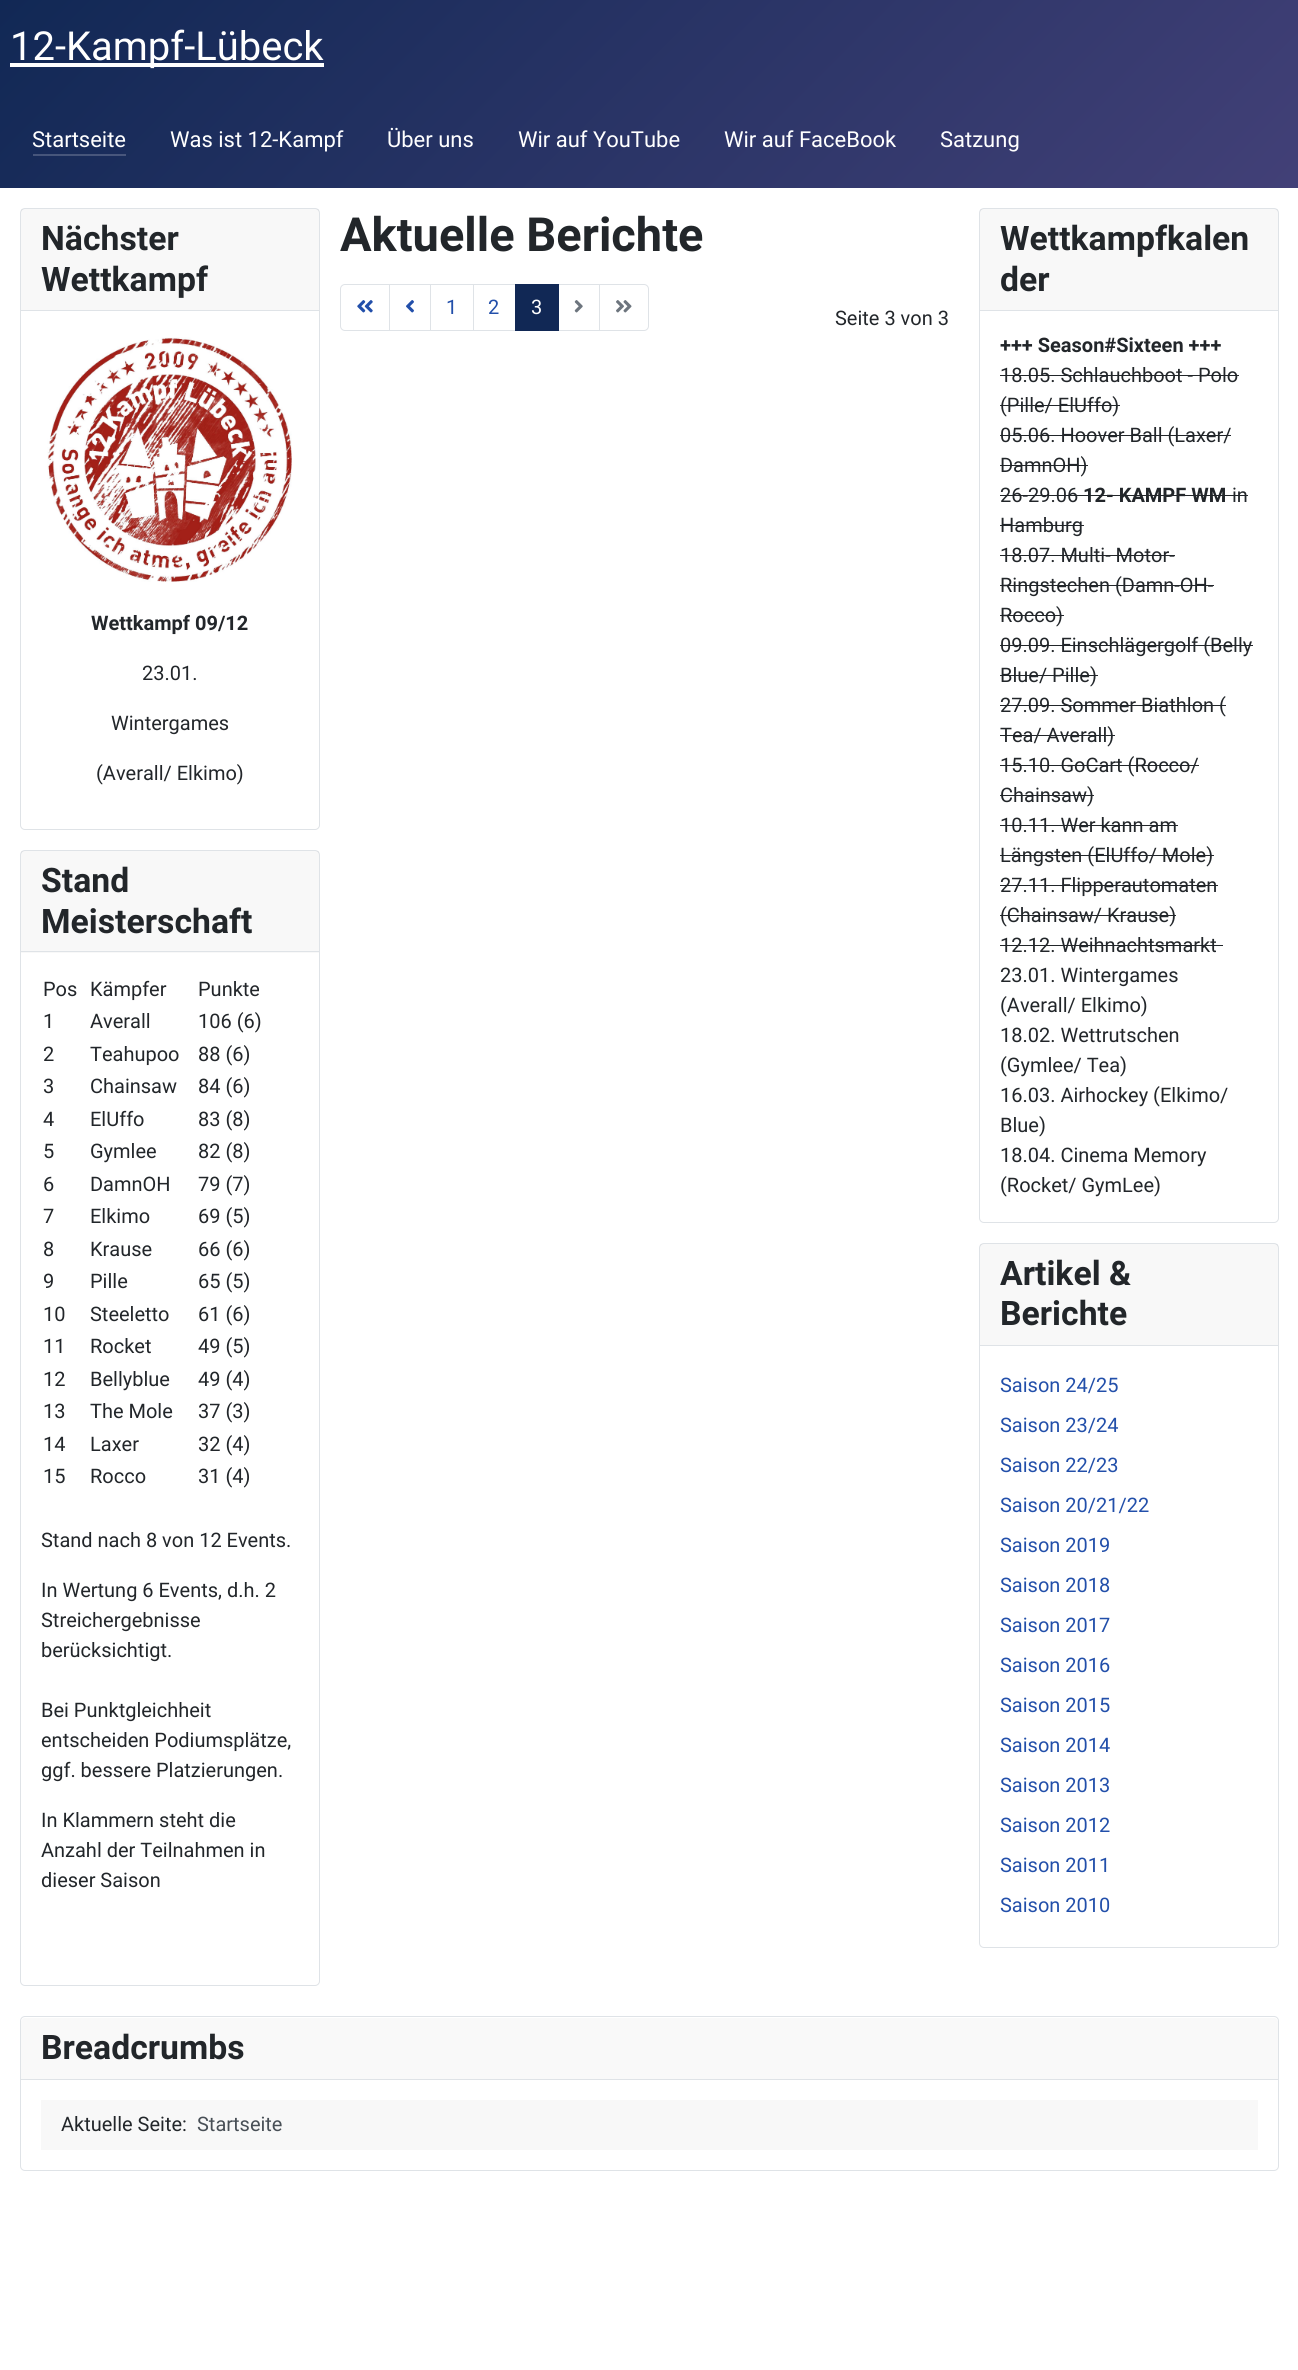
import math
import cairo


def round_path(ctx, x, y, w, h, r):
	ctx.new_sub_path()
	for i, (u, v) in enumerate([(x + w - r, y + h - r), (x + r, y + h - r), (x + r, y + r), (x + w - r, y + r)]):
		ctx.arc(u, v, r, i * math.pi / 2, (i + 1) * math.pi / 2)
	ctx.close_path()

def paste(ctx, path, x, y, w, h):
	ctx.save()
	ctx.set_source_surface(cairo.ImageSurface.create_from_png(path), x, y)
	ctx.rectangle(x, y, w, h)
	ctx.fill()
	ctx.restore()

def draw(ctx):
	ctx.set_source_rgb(1, 1, 1)
	ctx.paint()
	gradient = cairo.LinearGradient(278, -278, 1021, 465)
	gradient.add_color_stop_rgba(0, 0.067, 0.157, 0.333, 1)
	gradient.add_color_stop_rgba(1, 0.259, 0.251, 0.467, 1)
	ctx.set_source(gradient)
	ctx.rectangle(0, 0, 1298, 188)
	ctx.fill()
	gradient = cairo.LinearGradient(278, -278, 1021, 465)
	gradient.add_color_stop_rgba(0, 0.255, 0.325, 0.467, 1)
	gradient.add_color_stop_rgba(1, 0.408, 0.4, 0.573, 1)
	ctx.set_source(gradient)
	ctx.rectangle(33, 154, 93, 2)
	ctx.fill()
	ctx.set_source_rgb(1, 1, 1)
	ctx.rectangle(10, 63, 314, 4)
	ctx.fill()
	ctx.select_font_face('Roboto')
	ctx.set_font_size(40)
	ctx.move_to(10, 60)
	ctx.show_text('12-Kampf-Lübeck')
	ctx.set_font_size(22)
	for x, y, s in [
		(32, 147, 'Startseite'),
		(170, 147, 'Was ist 12-Kampf'),
		(387, 147, 'Über uns'),
		(518, 147, 'Wir auf YouTube'),
		(724, 147, 'Wir auf FaceBook'),
		(940, 147, 'Satzung'),
	]:
		ctx.move_to(x, y)
		ctx.show_text(s)
	round_path(ctx, 20.5, 208.5, 299, 621, 4.5)
	ctx.set_source_rgb(0.875, 0.89, 0.906)
	ctx.set_line_width(1)
	ctx.stroke()
	ctx.set_source_rgba(0, 0, 0, 0.03)
	ctx.rectangle(21, 209, 298, 101)
	ctx.fill()
	ctx.set_source_rgb(0.875, 0.89, 0.906)
	ctx.rectangle(21, 310, 298, 1)
	ctx.fill()
	ctx.select_font_face('Roboto', cairo.FONT_SLANT_NORMAL, cairo.FONT_WEIGHT_BOLD)
	ctx.set_font_size(33.75)
	ctx.set_source_rgb(0.133, 0.149, 0.165)
	ctx.move_to(41, 250)
	ctx.show_text('Nächster')
	ctx.move_to(41, 291)
	ctx.show_text('Wettkampf')
	paste(ctx, 'media/1.png', 47, 337, 245, 245)
	ctx.set_font_size(20)
	ctx.move_to(91, 630)
	ctx.show_text('Wettkampf 09/12')
	ctx.select_font_face('Roboto')
	for x, y, s in [
		(142, 680, '23.01.'),
		(111, 730, 'Wintergames'),
		(96, 780, '(Averall/ Elkimo)'),
	]:
		ctx.move_to(x, y)
		ctx.show_text(s)
	round_path(ctx, 20.5, 850.5, 299, 1135, 4.5)
	ctx.set_source_rgb(0.875, 0.89, 0.906)
	ctx.stroke()
	ctx.set_source_rgba(0, 0, 0, 0.03)
	ctx.rectangle(21, 851, 298, 102)
	ctx.fill()
	ctx.set_source_rgb(0.875, 0.89, 0.906)
	ctx.rectangle(21, 951, 298, 1)
	ctx.fill()
	ctx.select_font_face('Roboto', cairo.FONT_SLANT_NORMAL, cairo.FONT_WEIGHT_BOLD)
	ctx.set_font_size(33.75)
	ctx.set_source_rgb(0.133, 0.149, 0.165)
	ctx.move_to(41, 892)
	ctx.show_text('Stand')
	ctx.move_to(41, 933)
	ctx.show_text('Meisterschaft')
	ctx.select_font_face('Roboto')
	ctx.set_font_size(20)
	for x, y, s in [
		(43, 996, 'Pos'),
		(90, 996, 'Kämpfer'),
		(198, 996, 'Punkte'),
		(43, 1028, '1'),
		(90, 1028, 'Averall'),
		(198, 1028, '106 (6)'),
		(43, 1061, '2'),
		(90, 1061, 'Teahupoo'),
		(198, 1061, '88 (6)'),
		(43, 1093, '3'),
		(90, 1093, 'Chainsaw'),
		(198, 1093, '84 (6)'),
		(43, 1126, '4'),
		(90, 1126, 'ElUffo'),
		(198, 1126, '83 (8)'),
		(43, 1158, '5'),
		(90, 1158, 'Gymlee'),
		(198, 1158, '82 (8)'),
		(43, 1191, '6'),
		(90, 1191, 'DamnOH'),
		(198, 1191, '79 (7)'),
		(43, 1223, '7'),
		(90, 1223, 'Elkimo'),
		(198, 1223, '69 (5)'),
		(43, 1256, '8'),
		(90, 1256, 'Krause'),
		(198, 1256, '66 (6)'),
		(43, 1288, '9'),
		(90, 1288, 'Pille'),
		(198, 1288, '65 (5)'),
		(43, 1321, '10'),
		(90, 1321, 'Steeletto'),
		(198, 1321, '61 (6)'),
		(43, 1353, '11'),
		(90, 1353, 'Rocket'),
		(198, 1353, '49 (5)'),
		(43, 1386, '12'),
		(90, 1386, 'Bellyblue'),
		(198, 1386, '49 (4)'),
		(43, 1418, '13'),
		(90, 1418, 'The Mole'),
		(198, 1418, '37 (3)'),
		(43, 1451, '14'),
		(90, 1451, 'Laxer'),
		(198, 1451, '32 (4)'),
		(43, 1483, '15'),
		(90, 1483, 'Rocco'),
		(198, 1483, '31 (4)'),
		(41, 1547, 'Stand nach 8 von 12 Events.'),
		(41, 1597, 'In Wertung 6 Events, d.h. 2'),
		(41, 1627, 'Streichergebnisse'),
		(41, 1657, 'berücksichtigt.'),
		(41, 1717, 'Bei Punktgleichheit'),
		(41, 1747, 'entscheiden Podiumsplätze,'),
		(41, 1777, 'ggf. bessere Platzierungen.'),
		(41, 1827, 'In Klammern steht die'),
		(41, 1857, 'Anzahl der Teilnahmen in'),
		(41, 1887, 'dieser Saison'),
	]:
		ctx.move_to(x, y)
		ctx.show_text(s)
	ctx.select_font_face('Roboto', cairo.FONT_SLANT_NORMAL, cairo.FONT_WEIGHT_BOLD)
	ctx.set_font_size(47)
	ctx.move_to(340, 251)
	ctx.show_text('Aktuelle Berichte')
	ctx.new_path()
	ctx.move_to(345, 284.5)
	ctx.line_to(389.5, 284.5)
	ctx.line_to(389.5, 330.5)
	ctx.line_to(345, 330.5)
	ctx.curve_to(342.5, 330.5, 340.5, 328.5, 340.5, 326)
	ctx.line_to(340.5, 289)
	ctx.curve_to(340.5, 286.5, 342.5, 284.5, 345, 284.5)
	ctx.close_path()
	ctx.set_source_rgb(0.875, 0.89, 0.906)
	ctx.stroke()
	paste(ctx, 'media/2.png', 357, 300, 16, 13)
	ctx.rectangle(389.5, 284.5, 41, 46)
	ctx.stroke()
	paste(ctx, 'media/3.png', 406, 300, 8, 13)
	ctx.rectangle(430.5, 284.5, 43, 46)
	ctx.stroke()
	ctx.select_font_face('Roboto')
	ctx.set_font_size(20)
	ctx.set_source_rgb(0.133, 0.31, 0.667)
	ctx.move_to(446, 314)
	ctx.show_text('1')
	ctx.rectangle(473.5, 284.5, 42, 46)
	ctx.set_source_rgb(0.875, 0.89, 0.906)
	ctx.stroke()
	ctx.set_source_rgb(0.133, 0.31, 0.667)
	ctx.move_to(488, 314)
	ctx.show_text('2')
	ctx.rectangle(558.5, 284.5, 41, 46)
	ctx.set_source_rgb(0.875, 0.89, 0.906)
	ctx.stroke()
	ctx.set_source_rgb(0.067, 0.157, 0.333)
	ctx.rectangle(515, 284, 44, 47)
	ctx.fill()
	ctx.set_source_rgb(1, 1, 1)
	ctx.move_to(531, 314)
	ctx.show_text('3')
	paste(ctx, 'media/4.png', 574, 300, 9, 13)
	ctx.new_path()
	ctx.move_to(599.5, 284.5)
	ctx.line_to(644, 284.5)
	ctx.curve_to(646.5, 284.5, 648.5, 286.5, 648.5, 289)
	ctx.line_to(648.5, 326)
	ctx.curve_to(648.5, 328.5, 646.5, 330.5, 644, 330.5)
	ctx.line_to(599.5, 330.5)
	ctx.close_path()
	ctx.fill_preserve()
	ctx.set_source_rgb(0.875, 0.89, 0.906)
	ctx.stroke()
	paste(ctx, 'media/5.png', 616, 300, 16, 13)
	ctx.set_source_rgb(0.133, 0.149, 0.165)
	ctx.move_to(835, 325)
	ctx.show_text('Seite 3 von 3')
	round_path(ctx, 979.5, 208.5, 299, 1014, 4.5)
	ctx.set_source_rgb(0.875, 0.89, 0.906)
	ctx.stroke()
	ctx.set_source_rgba(0, 0, 0, 0.03)
	ctx.rectangle(980, 209, 298, 101)
	ctx.fill()
	ctx.set_source_rgb(0.875, 0.89, 0.906)
	ctx.rectangle(980, 310, 298, 1)
	ctx.fill()
	ctx.select_font_face('Roboto', cairo.FONT_SLANT_NORMAL, cairo.FONT_WEIGHT_BOLD)
	ctx.set_font_size(33.75)
	ctx.set_source_rgb(0.133, 0.149, 0.165)
	ctx.move_to(1000, 250)
	ctx.show_text('Wettkampfkalen')
	ctx.move_to(1000, 291)
	ctx.show_text('der')
	ctx.set_font_size(20)
	ctx.move_to(1000, 352)
	ctx.show_text('+++ Season#Sixteen +++')
	ctx.select_font_face('Roboto')
	ctx.move_to(1000, 382)
	ctx.show_text('18.05. Schlauchboot - Polo')
	ctx.rectangle(1000, 375, 239, 1)
	ctx.fill()
	ctx.move_to(1000, 412)
	ctx.show_text('(Pille/ ElUffo)')
	ctx.rectangle(1000, 405, 120, 1)
	ctx.fill()
	ctx.move_to(1000, 442)
	ctx.show_text('05.06. Hoover Ball (Laxer/')
	ctx.rectangle(1000, 435, 231, 1)
	ctx.fill()
	ctx.move_to(1000, 472)
	ctx.show_text('DamnOH)')
	ctx.rectangle(1000, 465, 88, 1)
	ctx.fill()
	ctx.move_to(1000, 502)
	ctx.show_text('26-29.06')
	ctx.rectangle(1000, 495, 84, 1)
	ctx.fill()
	ctx.select_font_face('Roboto', cairo.FONT_SLANT_NORMAL, cairo.FONT_WEIGHT_BOLD)
	ctx.move_to(1083, 502)
	ctx.show_text('12- KAMPF WM')
	ctx.rectangle(1084, 495, 142, 1)
	ctx.fill()
	ctx.rectangle(1226, 495, 22, 1)
	ctx.fill()
	ctx.select_font_face('Roboto')
	ctx.move_to(1232, 502)
	ctx.show_text('in')
	ctx.move_to(1000, 532)
	ctx.show_text('Hamburg')
	ctx.rectangle(1000, 525, 84, 1)
	ctx.fill()
	ctx.move_to(1000, 562)
	ctx.show_text('18.07. Multi- Motor-')
	ctx.rectangle(1000, 555, 175, 1)
	ctx.fill()
	ctx.move_to(1000, 592)
	ctx.show_text('Ringstechen (Damn-OH-')
	ctx.rectangle(1000, 585, 214, 1)
	ctx.fill()
	ctx.move_to(1000, 622)
	ctx.show_text('Rocco)')
	ctx.rectangle(1000, 615, 64, 1)
	ctx.fill()
	ctx.move_to(1000, 652)
	ctx.show_text('09.09. Einschlägergolf (Belly')
	ctx.rectangle(1000, 645, 253, 1)
	ctx.fill()
	ctx.move_to(1000, 682)
	ctx.show_text('Blue/ Pille)')
	ctx.rectangle(1000, 675, 98, 1)
	ctx.fill()
	ctx.move_to(1000, 712)
	ctx.show_text('27.09. Sommer Biathlon (')
	ctx.rectangle(1000, 705, 226, 1)
	ctx.fill()
	ctx.move_to(1000, 742)
	ctx.show_text('Tea/ Averall)')
	ctx.rectangle(1000, 735, 115, 1)
	ctx.fill()
	ctx.move_to(1000, 772)
	ctx.show_text('15.10. GoCart (Rocco/')
	ctx.rectangle(1000, 765, 199, 1)
	ctx.fill()
	ctx.move_to(1000, 802)
	ctx.show_text('Chainsaw)')
	ctx.rectangle(1000, 795, 94, 1)
	ctx.fill()
	ctx.move_to(1000, 832)
	ctx.show_text('10.11. Wer kann am')
	ctx.rectangle(1000, 825, 178, 1)
	ctx.fill()
	ctx.move_to(1000, 862)
	ctx.show_text('Längsten (ElUffo/ Mole)')
	ctx.rectangle(1000, 855, 214, 1)
	ctx.fill()
	ctx.move_to(1000, 892)
	ctx.show_text('27.11. Flipperautomaten')
	ctx.rectangle(1000, 885, 218, 1)
	ctx.fill()
	ctx.move_to(1000, 922)
	ctx.show_text('(Chainsaw/ Krause)')
	ctx.rectangle(1000, 915, 176, 1)
	ctx.fill()
	ctx.move_to(1000, 952)
	ctx.show_text('12.12. Weihnachtsmarkt')
	ctx.rectangle(1000, 945, 223, 1)
	ctx.fill()
	for x, y, s in [
		(1000, 982, '23.01. Wintergames'),
		(1000, 1012, '(Averall/ Elkimo)'),
		(1000, 1042, '18.02. Wettrutschen'),
		(1000, 1072, '(Gymlee/ Tea)'),
		(1000, 1102, '16.03. Airhockey (Elkimo/'),
		(1000, 1132, 'Blue)'),
		(1000, 1162, '18.04. Cinema Memory'),
		(1000, 1192, '(Rocket/ GymLee)'),
	]:
		ctx.move_to(x, y)
		ctx.show_text(s)
	round_path(ctx, 979.5, 1243.5, 299, 704, 4.5)
	ctx.set_source_rgb(0.875, 0.89, 0.906)
	ctx.stroke()
	ctx.set_source_rgba(0, 0, 0, 0.03)
	ctx.rectangle(980, 1244, 298, 101)
	ctx.fill()
	ctx.set_source_rgb(0.875, 0.89, 0.906)
	ctx.rectangle(980, 1345, 298, 1)
	ctx.fill()
	ctx.select_font_face('Roboto', cairo.FONT_SLANT_NORMAL, cairo.FONT_WEIGHT_BOLD)
	ctx.set_font_size(33.75)
	ctx.set_source_rgb(0.133, 0.149, 0.165)
	ctx.move_to(1000, 1285)
	ctx.show_text('Artikel &')
	ctx.move_to(1000, 1325)
	ctx.show_text('Berichte')
	ctx.select_font_face('Roboto')
	ctx.set_font_size(20)
	ctx.set_source_rgb(0.133, 0.31, 0.667)
	for x, y, s in [
		(1000, 1392, 'Saison 24/25'),
		(1000, 1432, 'Saison 23/24'),
		(1000, 1472, 'Saison 22/23'),
		(1000, 1512, 'Saison 20/21/22'),
		(1000, 1552, 'Saison 2019'),
		(1000, 1592, 'Saison 2018'),
		(1000, 1632, 'Saison 2017'),
		(1000, 1672, 'Saison 2016'),
		(1000, 1712, 'Saison 2015'),
		(1000, 1752, 'Saison 2014'),
		(1000, 1792, 'Saison 2013'),
		(1000, 1832, 'Saison 2012'),
		(1000, 1872, 'Saison 2011'),
		(1000, 1912, 'Saison 2010'),
	]:
		ctx.move_to(x, y)
		ctx.show_text(s)
	round_path(ctx, 20.5, 2016.5, 1258, 154, 4.5)
	ctx.set_source_rgb(0.875, 0.89, 0.906)
	ctx.stroke()
	ctx.set_source_rgb(0.973, 0.973, 0.973)
	ctx.new_path()
	ctx.move_to(25, 2018)
	ctx.line_to(1274, 2018)
	ctx.curve_to(1276, 2018, 1278, 2020, 1278, 2022)
	ctx.line_to(1278, 2080)
	ctx.line_to(21, 2080)
	ctx.line_to(21, 2022)
	ctx.curve_to(21, 2020, 23, 2018, 25, 2018)
	ctx.close_path()
	ctx.fill()
	ctx.set_source_rgb(0.875, 0.89, 0.906)
	ctx.rectangle(21, 2079, 1257, 1)
	ctx.fill()
	ctx.select_font_face('Roboto', cairo.FONT_SLANT_NORMAL, cairo.FONT_WEIGHT_BOLD)
	ctx.set_font_size(33.75)
	ctx.set_source_rgb(0.133, 0.149, 0.165)
	ctx.move_to(41, 2059)
	ctx.show_text('Breadcrumbs')
	ctx.set_source_rgb(0.969, 0.969, 0.969)
	ctx.rectangle(41, 2100, 1217, 50)
	ctx.fill()
	ctx.select_font_face('Roboto')
	ctx.set_font_size(20)
	ctx.set_source_rgb(0.133, 0.149, 0.165)
	ctx.move_to(61, 2131)
	ctx.show_text('Aktuelle Seite:')
	ctx.set_source_rgb(0.282, 0.31, 0.337)
	ctx.move_to(197, 2131)
	ctx.show_text('Startseite')


surface = cairo.ImageSurface(cairo.FORMAT_RGB24, 1298, 2370)
ctx = cairo.Context(surface)
options = cairo.FontOptions()
options.set_hint_metrics(cairo.HINT_METRICS_OFF)
options.set_hint_style(cairo.HINT_STYLE_NONE)
ctx.set_font_options(options)
ctx.set_miter_limit(4)
draw(ctx)
surface.write_to_png('image.png')
